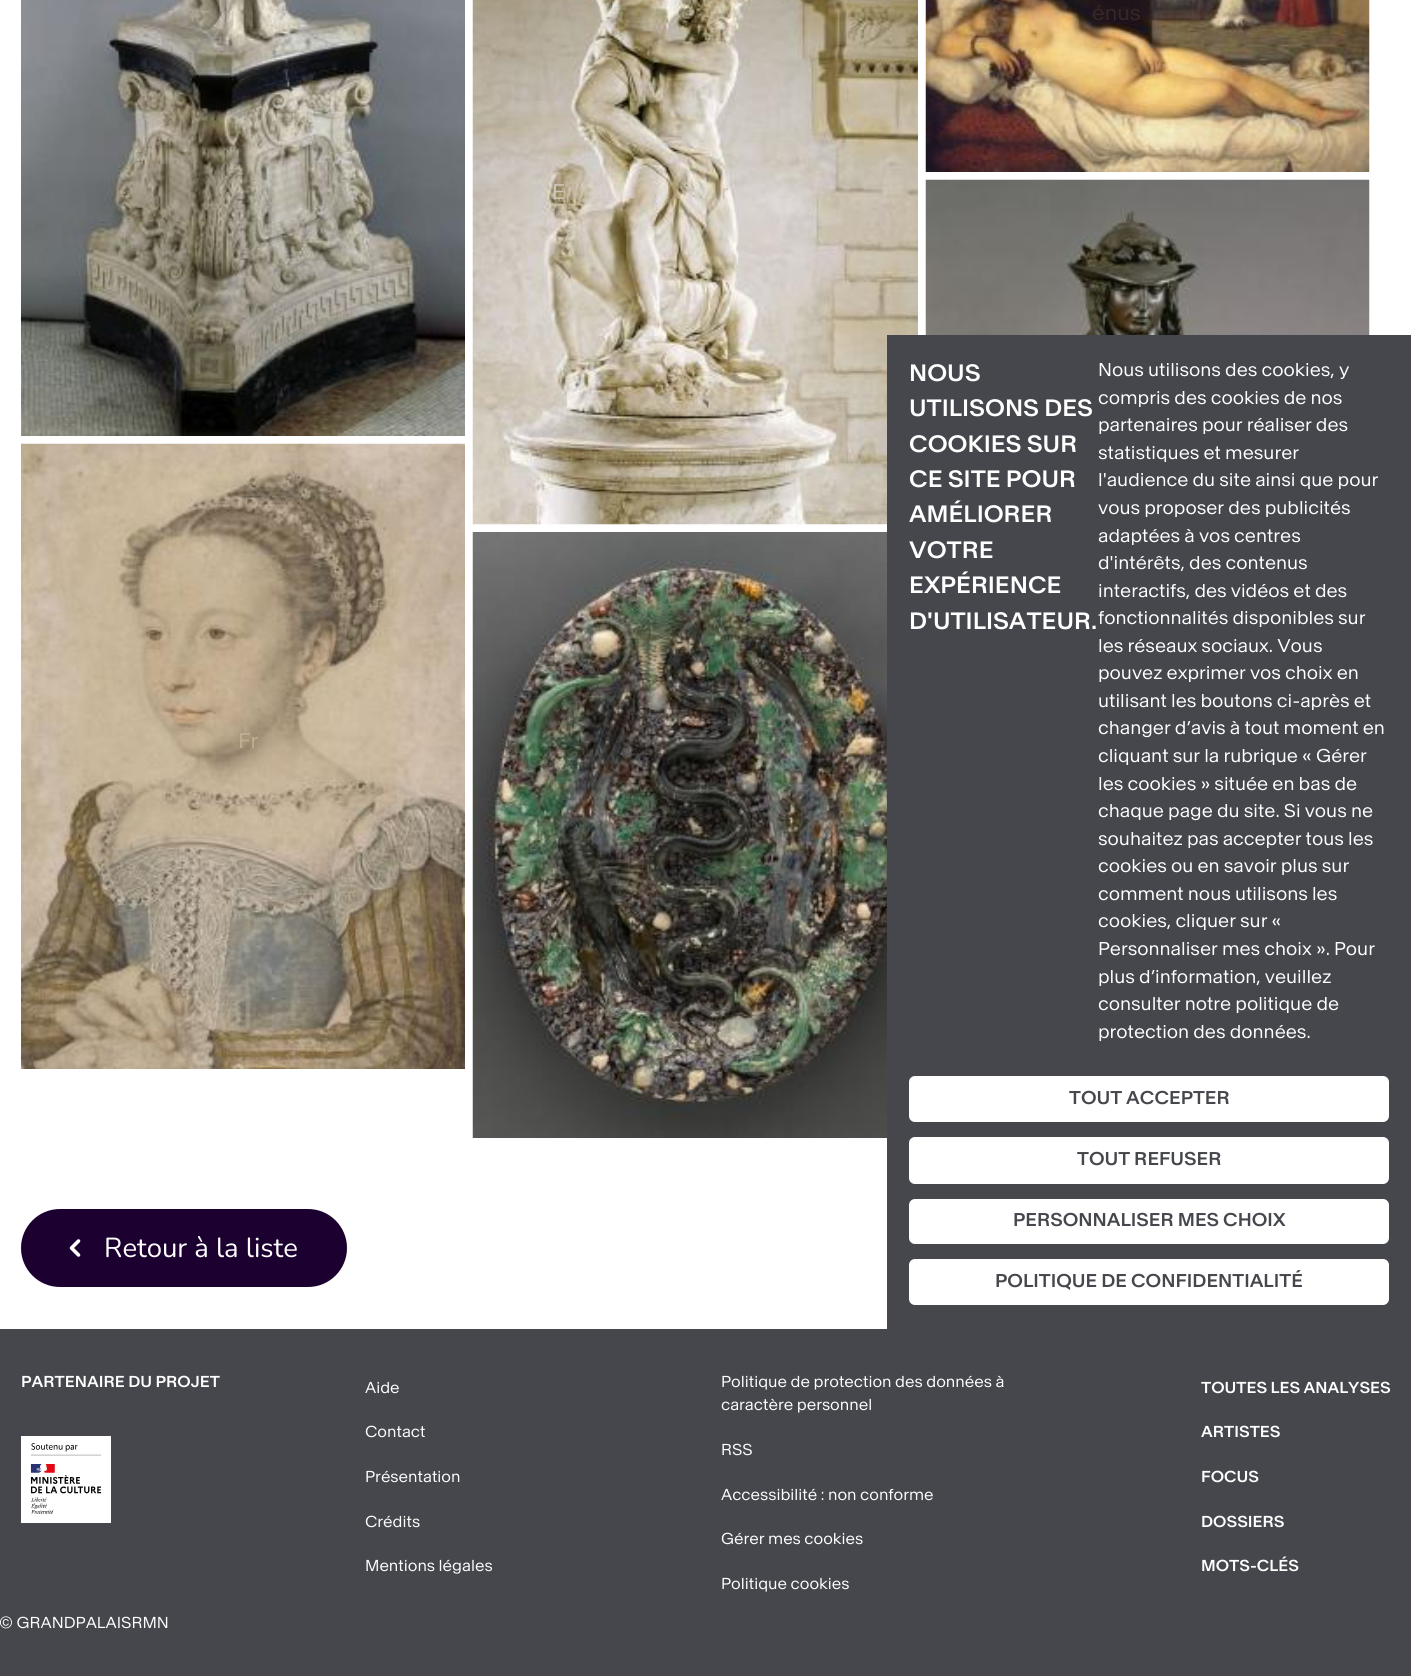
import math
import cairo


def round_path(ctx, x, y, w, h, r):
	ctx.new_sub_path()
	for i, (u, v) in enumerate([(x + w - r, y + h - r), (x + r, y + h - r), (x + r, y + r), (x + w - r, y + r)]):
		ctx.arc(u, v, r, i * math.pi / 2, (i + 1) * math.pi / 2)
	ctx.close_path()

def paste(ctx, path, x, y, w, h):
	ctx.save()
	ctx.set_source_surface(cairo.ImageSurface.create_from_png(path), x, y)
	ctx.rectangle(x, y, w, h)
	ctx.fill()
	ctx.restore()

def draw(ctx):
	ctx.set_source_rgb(1, 1, 1)
	ctx.paint()
	paste(ctx, 'media/1.png', 21, 0, 444, 436)
	paste(ctx, 'media/2.png', 925, 0, 445, 172)
	ctx.select_font_face('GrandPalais')
	ctx.set_font_size(21)
	ctx.set_source_rgb(0.208, 0.157, 0.153)
	ctx.move_to(1092, 20)
	ctx.show_text('énus')
	paste(ctx, 'media/3.png', 472, 0, 446, 525)
	ctx.set_source_rgb(0.808, 0.776, 0.722)
	ctx.move_to(552, 199)
	ctx.show_text('E')
	ctx.move_to(721, 199)
	ctx.show_text('r')
	paste(ctx, 'media/4.png', 925, 179, 445, 156)
	paste(ctx, 'media/5.png', 21, 443, 444, 626)
	ctx.set_source_rgb(0.757, 0.686, 0.58)
	ctx.move_to(238, 748)
	ctx.show_text('Fr')
	paste(ctx, 'media/6.png', 472, 532, 415, 606)
	ctx.set_source_rgb(0.106, 0, 0.188)
	round_path(ctx, 22.5, 1210.5, 323, 75, 37.5)
	ctx.fill_preserve()
	ctx.set_line_width(3)
	ctx.stroke()
	ctx.new_path()
	ctx.move_to(78.5, 1241)
	ctx.line_to(71.5, 1248)
	ctx.line_to(78.5, 1255)
	ctx.set_source_rgb(1, 1, 1)
	ctx.set_line_width(3.6)
	ctx.set_line_cap(cairo.LINE_CAP_ROUND)
	ctx.set_line_join(cairo.LINE_JOIN_ROUND)
	ctx.stroke()
	ctx.select_font_face('Nunito')
	ctx.set_font_size(27.5)
	ctx.move_to(104, 1257)
	ctx.show_text('Retour à la liste')
	ctx.set_source_rgb(0.271, 0.278, 0.302)
	ctx.rectangle(0, 1329, 1411, 347)
	ctx.fill()
	ctx.select_font_face('GrandPalais Medium')
	ctx.set_font_size(15.75)
	ctx.set_source_rgb(1, 1, 1)
	ctx.move_to(21, 1387)
	ctx.show_text('PARTENAIRE DU PROJET')
	ctx.rectangle(21, 1436, 90, 87)
	ctx.fill()
	paste(ctx, 'media/7.png', 30, 1443, 72, 71)
	ctx.select_font_face('GrandPalais')
	for x, y, s in [
		(365, 1393, 'Aide'),
		(721, 1387, 'Politique de protection des données à'),
		(721, 1410, 'caractère personnel'),
		(365, 1437, 'Contact'),
		(721, 1455, 'RSS'),
		(365, 1482, 'Présentation'),
		(721, 1500, 'Accessibilité : non conforme'),
		(365, 1527, 'Crédits'),
		(721, 1544, 'Gérer mes cookies'),
		(365, 1571, 'Mentions légales'),
		(721, 1589, 'Politique cookies'),
	]:
		ctx.move_to(x, y)
		ctx.show_text(s)
	ctx.select_font_face('GrandPalais Medium')
	for x, y, s in [
		(1201, 1393, 'TOUTES LES ANALYSES'),
		(1201, 1437, 'ARTISTES'),
		(1201, 1482, 'FOCUS'),
		(1201, 1527, 'DOSSIERS'),
		(1201, 1571, 'MOTS-CLÉS'),
	]:
		ctx.move_to(x, y)
		ctx.show_text(s)
	ctx.select_font_face('GrandPalais')
	ctx.move_to(-1, 1628)
	ctx.show_text('© GRANDPALAISRMN')
	ctx.set_source_rgb(0.271, 0.278, 0.302)
	ctx.rectangle(887, 335, 524, 994)
	ctx.fill()
	ctx.select_font_face('GrandPalais Medium')
	ctx.set_font_size(23.5)
	ctx.set_source_rgb(1, 1, 1)
	for x, y, s in [
		(909, 381, 'NOUS'),
		(909, 416, 'UTILISONS DES'),
		(909, 452, 'COOKIES SUR'),
		(909, 487, 'CE SITE POUR'),
		(909, 522, 'AMÉLIORER'),
		(909, 558, 'VOTRE'),
		(909, 593, 'EXPÉRIENCE'),
		(909, 629, 'D\'UTILISATEUR.'),
	]:
		ctx.move_to(x, y)
		ctx.show_text(s)
	ctx.select_font_face('GrandPalais')
	ctx.set_font_size(18.4)
	for x, y, s in [
		(1098, 376, 'Nous utilisons des cookies, y'),
		(1098, 404, 'compris des cookies de nos'),
		(1098, 431, 'partenaires pour réaliser des'),
		(1098, 459, 'statistiques et mesurer'),
		(1098, 486, 'l\'audience du site ainsi que pour'),
		(1098, 514, 'vous proposer des publicités'),
		(1098, 542, 'adaptées à vos centres'),
		(1098, 569, 'd\'intérêts, des contenus'),
		(1098, 597, 'interactifs, des vidéos et des'),
		(1098, 624, 'fonctionnalités disponibles sur'),
		(1098, 652, 'les réseaux sociaux. Vous'),
		(1098, 679, 'pouvez exprimer vos choix en'),
		(1098, 707, 'utilisant les boutons ci-après et'),
		(1098, 734, 'changer d’avis à tout moment en'),
		(1098, 762, 'cliquant sur la rubrique « Gérer'),
		(1098, 790, 'les cookies » située en bas de'),
		(1098, 817, 'chaque page du site. Si vous ne'),
		(1098, 845, 'souhaitez pas accepter tous les'),
		(1098, 872, 'cookies ou en savoir plus sur'),
		(1098, 900, 'comment nous utilisons les'),
		(1098, 927, 'cookies, cliquer sur «'),
		(1098, 955, 'Personnaliser mes choix ». Pour'),
		(1098, 983, 'plus d’information, veuillez'),
		(1098, 1010, 'consulter notre politique de'),
		(1098, 1038, 'protection des données.'),
	]:
		ctx.move_to(x, y)
		ctx.show_text(s)
	round_path(ctx, 909, 1076, 480, 46, 6)
	ctx.fill()
	ctx.select_font_face('GrandPalais Medium')
	ctx.set_source_rgb(0.271, 0.278, 0.302)
	ctx.move_to(1069, 1104)
	ctx.show_text('TOUT ACCEPTER')
	ctx.set_source_rgb(1, 1, 1)
	round_path(ctx, 909, 1137, 480, 47, 6)
	ctx.fill()
	ctx.set_source_rgb(0.271, 0.278, 0.302)
	ctx.move_to(1077, 1165)
	ctx.show_text('TOUT REFUSER')
	ctx.set_source_rgb(1, 1, 1)
	round_path(ctx, 909, 1199, 480, 45, 6)
	ctx.fill()
	ctx.set_source_rgb(0.271, 0.278, 0.302)
	ctx.move_to(1013, 1226)
	ctx.show_text('PERSONNALISER MES CHOIX')
	ctx.set_source_rgb(1, 1, 1)
	round_path(ctx, 909, 1259, 480, 46, 6)
	ctx.fill()
	ctx.set_source_rgb(0.271, 0.278, 0.302)
	ctx.move_to(995, 1287)
	ctx.show_text('POLITIQUE DE CONFIDENTIALITÉ')


surface = cairo.ImageSurface(cairo.FORMAT_RGB24, 1411, 1676)
ctx = cairo.Context(surface)
options = cairo.FontOptions()
options.set_hint_metrics(cairo.HINT_METRICS_OFF)
options.set_hint_style(cairo.HINT_STYLE_NONE)
ctx.set_font_options(options)
ctx.set_miter_limit(4)
draw(ctx)
surface.write_to_png('image.png')
